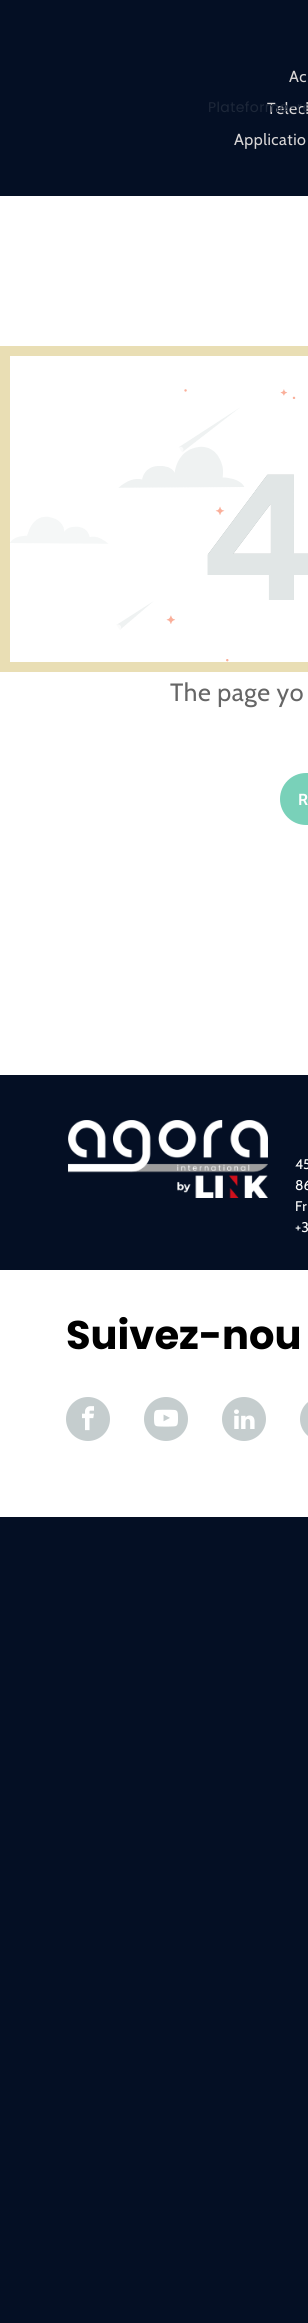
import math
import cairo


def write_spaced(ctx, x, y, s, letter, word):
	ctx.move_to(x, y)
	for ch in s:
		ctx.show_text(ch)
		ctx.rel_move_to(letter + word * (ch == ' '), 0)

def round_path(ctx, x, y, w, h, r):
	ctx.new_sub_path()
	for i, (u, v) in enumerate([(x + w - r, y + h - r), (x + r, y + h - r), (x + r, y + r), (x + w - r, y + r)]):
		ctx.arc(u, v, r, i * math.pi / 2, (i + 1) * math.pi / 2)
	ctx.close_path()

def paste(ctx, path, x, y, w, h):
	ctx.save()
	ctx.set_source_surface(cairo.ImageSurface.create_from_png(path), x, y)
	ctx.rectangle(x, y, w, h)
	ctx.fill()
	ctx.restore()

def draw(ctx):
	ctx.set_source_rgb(0.016, 0.059, 0.141)
	ctx.paint()
	ctx.select_font_face('Cabin')
	ctx.set_font_size(16)
	ctx.set_source_rgb(0.851, 0.839, 0.839)
	write_spaced(ctx, 289, 82, 'Ac', 0.5, 0)
	write_spaced(ctx, 267, 114, 'Telech', 0.5, 0)
	ctx.select_font_face('Poppins')
	ctx.set_font_size(14)
	ctx.set_source_rgb(0.114, 0.153, 0.224)
	write_spaced(ctx, 208, 112, 'Plateforme-re', 0.4, 0)
	ctx.select_font_face('Cabin')
	ctx.set_font_size(16)
	ctx.set_source_rgb(0.851, 0.839, 0.839)
	write_spaced(ctx, 234, 145, 'Applicatio', 0.5, 0)
	ctx.set_source_rgb(1, 1, 1)
	ctx.rectangle(0, 196, 308, 1321)
	ctx.fill()
	ctx.rectangle(5, 351, 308, 316)
	ctx.set_source_rgb(0.914, 0.871, 0.706)
	ctx.set_line_width(10)
	ctx.stroke()
	paste(ctx, 'media/1.png', 10, 389, 298, 273)
	ctx.set_font_size(25)
	ctx.set_source_rgb(0.4, 0.4, 0.4)
	write_spaced(ctx, 170, 701, 'The page yo', 0.5, 0)
	ctx.set_source_rgb(0.475, 0.82, 0.725)
	round_path(ctx, 280, 773, 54, 52, 26)
	ctx.fill()
	ctx.select_font_face('Cabin', cairo.FONT_SLANT_NORMAL, cairo.FONT_WEIGHT_BOLD)
	ctx.set_font_size(16)
	ctx.set_source_rgb(1, 1, 1)
	ctx.move_to(298, 805)
	ctx.show_text('R')
	ctx.set_source_rgb(0.016, 0.059, 0.141)
	ctx.rectangle(0, 1075, 308, 195)
	ctx.fill()
	paste(ctx, 'media/2.png', 68, 1120, 200, 78)
	ctx.select_font_face('Cabin')
	ctx.set_font_size(14)
	ctx.set_source_rgb(1, 1, 1)
	for x, y, s in [
		(295, 1169, '45'),
		(295, 1190, '86'),
		(295, 1211, 'Fr'),
		(295, 1232, '+3'),
	]:
		ctx.move_to(x, y)
		ctx.show_text(s)
	ctx.select_font_face('Poppins', cairo.FONT_SLANT_NORMAL, cairo.FONT_WEIGHT_BOLD)
	ctx.set_font_size(40)
	ctx.set_source_rgb(0, 0, 0)
	ctx.move_to(66, 1349)
	ctx.show_text('Suivez-nou')
	ctx.set_source_rgb(0.773, 0.804, 0.808)
	ctx.new_path()
	ctx.arc(88, 1419, 22, 0, 2 * math.pi)
	ctx.fill()
	paste(ctx, 'media/3.png', 82, 1406, 12, 25)
	ctx.arc(166, 1419, 22, 0, 2 * math.pi)
	ctx.fill()
	paste(ctx, 'media/4.png', 154, 1409, 24, 18)
	ctx.arc(244, 1419, 22, 0, 2 * math.pi)
	ctx.fill()
	paste(ctx, 'media/5.png', 234, 1409, 21, 20)
	round_path(ctx, 300, 1397, 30, 44, 22)
	ctx.fill()


surface = cairo.ImageSurface(cairo.FORMAT_RGB24, 308, 2323)
ctx = cairo.Context(surface)
options = cairo.FontOptions()
options.set_hint_metrics(cairo.HINT_METRICS_OFF)
options.set_hint_style(cairo.HINT_STYLE_NONE)
ctx.set_font_options(options)
ctx.set_miter_limit(4)
draw(ctx)
surface.write_to_png('image.png')
